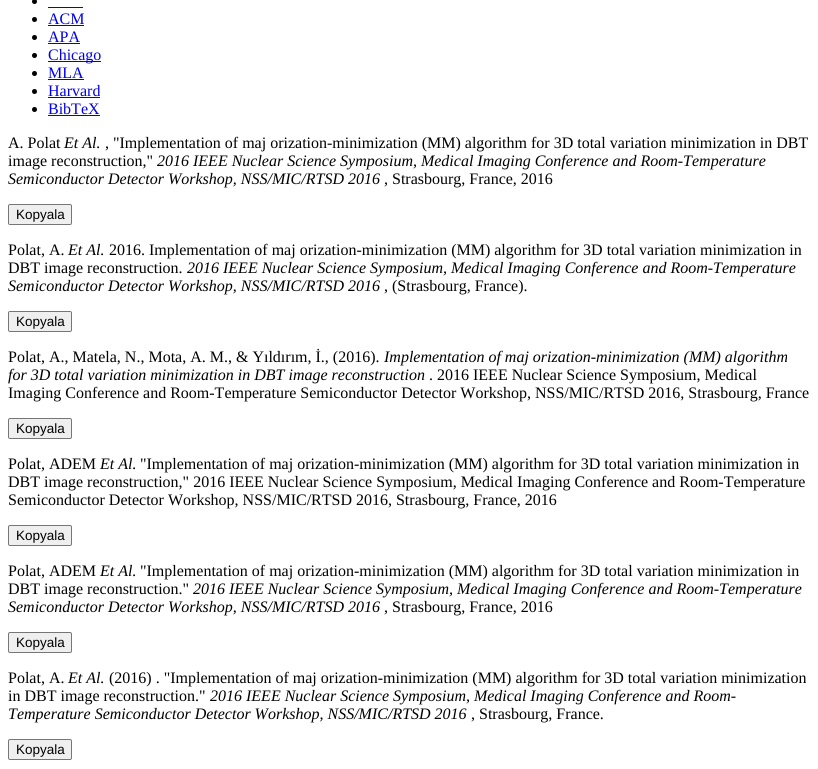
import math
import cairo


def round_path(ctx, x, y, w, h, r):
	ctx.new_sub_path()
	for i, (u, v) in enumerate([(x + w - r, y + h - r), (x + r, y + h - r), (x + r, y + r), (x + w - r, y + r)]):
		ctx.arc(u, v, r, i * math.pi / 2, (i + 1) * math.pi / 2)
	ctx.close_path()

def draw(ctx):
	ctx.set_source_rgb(1, 1, 1)
	ctx.paint()
	ctx.set_source_rgb(0, 0, 0)
	ctx.arc(34.5, 1.5, 2.5, 0, 2 * math.pi)
	ctx.fill()
	ctx.set_source_rgb(0, 0, 0.933)
	ctx.rectangle(48, 7, 35, 1)
	ctx.fill()
	ctx.set_source_rgb(0, 0, 0)
	ctx.arc(34.5, 19.5, 2.5, 0, 2 * math.pi)
	ctx.fill()
	ctx.select_font_face('Liberation Serif')
	ctx.set_font_size(16)
	ctx.set_source_rgb(0, 0, 0.933)
	ctx.move_to(48, 24)
	ctx.show_text('ACM')
	ctx.rectangle(48, 25, 36, 1)
	ctx.fill()
	ctx.set_source_rgb(0, 0, 0)
	ctx.arc(34.5, 37.5, 2.5, 0, 2 * math.pi)
	ctx.fill()
	ctx.set_source_rgb(0, 0, 0.933)
	ctx.move_to(48, 42)
	ctx.show_text('APA')
	ctx.rectangle(48, 43, 32, 1)
	ctx.fill()
	ctx.set_source_rgb(0, 0, 0)
	ctx.arc(34.5, 55.5, 2.5, 0, 2 * math.pi)
	ctx.fill()
	ctx.set_source_rgb(0, 0, 0.933)
	ctx.rectangle(48, 61, 53, 1)
	ctx.fill()
	ctx.move_to(48, 60)
	ctx.show_text('Chicago')
	ctx.set_source_rgb(0, 0, 0)
	ctx.new_path()
	ctx.arc(34.5, 73.5, 2.5, 0, 2 * math.pi)
	ctx.fill()
	ctx.set_source_rgb(0, 0, 0.933)
	ctx.move_to(48, 78)
	ctx.show_text('MLA')
	ctx.rectangle(48, 79, 36, 1)
	ctx.fill()
	ctx.set_source_rgb(0, 0, 0)
	ctx.arc(34.5, 91.5, 2.5, 0, 2 * math.pi)
	ctx.fill()
	ctx.set_source_rgb(0, 0, 0.933)
	ctx.move_to(48, 96)
	ctx.show_text('Harvard')
	ctx.rectangle(48, 97, 52, 1)
	ctx.fill()
	ctx.set_source_rgb(0, 0, 0)
	ctx.arc(34.5, 109.5, 2.5, 0, 2 * math.pi)
	ctx.fill()
	ctx.set_source_rgb(0, 0, 0.933)
	ctx.move_to(48, 114)
	ctx.show_text('BibTeX')
	ctx.rectangle(48, 115, 52, 1)
	ctx.fill()
	ctx.set_source_rgb(0, 0, 0)
	ctx.move_to(8, 148)
	ctx.show_text('A. Polat')
	ctx.select_font_face('Liberation Serif', cairo.FONT_SLANT_ITALIC)
	ctx.move_to(64, 148)
	ctx.show_text('Et Al.')
	ctx.select_font_face('Liberation Serif')
	ctx.move_to(105, 148)
	ctx.show_text(', "Implementation of maj orization-minimization (MM) algorithm for 3D total variation minimization in DBT')
	ctx.move_to(8, 166)
	ctx.show_text('image reconstruction,"')
	ctx.select_font_face('Liberation Serif', cairo.FONT_SLANT_ITALIC)
	ctx.move_to(157, 166)
	ctx.show_text('2016 IEEE Nuclear Science Symposium, Medical Imaging Conference and Room-Temperature')
	ctx.move_to(8, 184)
	ctx.show_text('Semiconductor Detector Workshop, NSS/MIC/RTSD 2016')
	ctx.select_font_face('Liberation Serif')
	ctx.move_to(384, 184)
	ctx.show_text(', Strasbourg, France, 2016')
	ctx.set_source_rgb(0.937, 0.937, 0.937)
	round_path(ctx, 8.5, 204.5, 63, 20, 1.5)
	ctx.fill_preserve()
	ctx.set_source_rgb(0.463, 0.463, 0.463)
	ctx.set_line_width(1)
	ctx.stroke()
	ctx.select_font_face('Liberation Sans')
	ctx.set_font_size(13.5)
	ctx.set_source_rgb(0, 0, 0)
	ctx.move_to(16, 219)
	ctx.show_text('Kopyala')
	ctx.select_font_face('Liberation Serif')
	ctx.set_font_size(16)
	ctx.move_to(8, 255)
	ctx.show_text('Polat, A.')
	ctx.select_font_face('Liberation Serif', cairo.FONT_SLANT_ITALIC)
	ctx.move_to(68, 255)
	ctx.show_text('Et Al.')
	ctx.select_font_face('Liberation Serif')
	ctx.move_to(109, 255)
	ctx.show_text('2016. Implementation of maj orization-minimization (MM) algorithm for 3D total variation minimization in')
	ctx.move_to(8, 273)
	ctx.show_text('DBT image reconstruction.')
	ctx.select_font_face('Liberation Serif', cairo.FONT_SLANT_ITALIC)
	ctx.move_to(187, 273)
	ctx.show_text('2016 IEEE Nuclear Science Symposium, Medical Imaging Conference and Room-Temperature')
	ctx.move_to(8, 291)
	ctx.show_text('Semiconductor Detector Workshop, NSS/MIC/RTSD 2016')
	ctx.select_font_face('Liberation Serif')
	ctx.move_to(384, 291)
	ctx.show_text(', (Strasbourg, France).')
	ctx.set_source_rgb(0.937, 0.937, 0.937)
	round_path(ctx, 8.5, 311.5, 63, 20, 1.5)
	ctx.fill_preserve()
	ctx.set_source_rgb(0.463, 0.463, 0.463)
	ctx.stroke()
	ctx.select_font_face('Liberation Sans')
	ctx.set_font_size(13.5)
	ctx.set_source_rgb(0, 0, 0)
	ctx.move_to(16, 326)
	ctx.show_text('Kopyala')
	ctx.select_font_face('Liberation Serif')
	ctx.set_font_size(16)
	ctx.move_to(8, 362)
	ctx.show_text('Polat, A., Matela, N., Mota, A. M., & Yıldırım, İ., (2016).')
	ctx.select_font_face('Liberation Serif', cairo.FONT_SLANT_ITALIC)
	ctx.move_to(384, 362)
	ctx.show_text('Implementation of maj orization-minimization (MM) algorithm')
	ctx.move_to(8, 380)
	ctx.show_text('for 3D total variation minimization in DBT image reconstruction')
	ctx.select_font_face('Liberation Serif')
	ctx.move_to(429, 380)
	ctx.show_text('. 2016 IEEE Nuclear Science Symposium, Medical')
	ctx.move_to(8, 398)
	ctx.show_text('Imaging Conference and Room-Temperature Semiconductor Detector Workshop, NSS/MIC/RTSD 2016, Strasbourg, France')
	ctx.set_source_rgb(0.937, 0.937, 0.937)
	round_path(ctx, 8.5, 418.5, 63, 20, 1.5)
	ctx.fill_preserve()
	ctx.set_source_rgb(0.463, 0.463, 0.463)
	ctx.stroke()
	ctx.select_font_face('Liberation Sans')
	ctx.set_font_size(13.5)
	ctx.set_source_rgb(0, 0, 0)
	ctx.move_to(16, 433)
	ctx.show_text('Kopyala')
	ctx.select_font_face('Liberation Serif')
	ctx.set_font_size(16)
	ctx.move_to(8, 469)
	ctx.show_text('Polat, ADEM')
	ctx.select_font_face('Liberation Serif', cairo.FONT_SLANT_ITALIC)
	ctx.move_to(100, 469)
	ctx.show_text('Et Al.')
	ctx.select_font_face('Liberation Serif')
	for x, y, s in [
		(140, 469, '"Implementation of maj orization-minimization (MM) algorithm for 3D total variation minimization in'),
		(8, 487, 'DBT image reconstruction," 2016 IEEE Nuclear Science Symposium, Medical Imaging Conference and Room-Temperature'),
		(8, 505, 'Semiconductor Detector Workshop, NSS/MIC/RTSD 2016, Strasbourg, France, 2016'),
	]:
		ctx.move_to(x, y)
		ctx.show_text(s)
	ctx.set_source_rgb(0.937, 0.937, 0.937)
	round_path(ctx, 8.5, 525.5, 63, 20, 1.5)
	ctx.fill_preserve()
	ctx.set_source_rgb(0.463, 0.463, 0.463)
	ctx.stroke()
	ctx.select_font_face('Liberation Sans')
	ctx.set_font_size(13.5)
	ctx.set_source_rgb(0, 0, 0)
	ctx.move_to(16, 540)
	ctx.show_text('Kopyala')
	ctx.select_font_face('Liberation Serif')
	ctx.set_font_size(16)
	ctx.move_to(8, 576)
	ctx.show_text('Polat, ADEM')
	ctx.select_font_face('Liberation Serif', cairo.FONT_SLANT_ITALIC)
	ctx.move_to(100, 576)
	ctx.show_text('Et Al.')
	ctx.select_font_face('Liberation Serif')
	ctx.move_to(140, 576)
	ctx.show_text('"Implementation of maj orization-minimization (MM) algorithm for 3D total variation minimization in')
	ctx.move_to(8, 594)
	ctx.show_text('DBT image reconstruction."')
	ctx.select_font_face('Liberation Serif', cairo.FONT_SLANT_ITALIC)
	ctx.move_to(193, 594)
	ctx.show_text('2016 IEEE Nuclear Science Symposium, Medical Imaging Conference and Room-Temperature')
	ctx.move_to(8, 612)
	ctx.show_text('Semiconductor Detector Workshop, NSS/MIC/RTSD 2016')
	ctx.select_font_face('Liberation Serif')
	ctx.move_to(384, 612)
	ctx.show_text(', Strasbourg, France, 2016')
	ctx.set_source_rgb(0.937, 0.937, 0.937)
	round_path(ctx, 8.5, 632.5, 63, 20, 1.5)
	ctx.fill_preserve()
	ctx.set_source_rgb(0.463, 0.463, 0.463)
	ctx.stroke()
	ctx.select_font_face('Liberation Sans')
	ctx.set_font_size(13.5)
	ctx.set_source_rgb(0, 0, 0)
	ctx.move_to(16, 647)
	ctx.show_text('Kopyala')
	ctx.select_font_face('Liberation Serif')
	ctx.set_font_size(16)
	ctx.move_to(8, 683)
	ctx.show_text('Polat, A.')
	ctx.select_font_face('Liberation Serif', cairo.FONT_SLANT_ITALIC)
	ctx.move_to(68, 683)
	ctx.show_text('Et Al.')
	ctx.select_font_face('Liberation Serif')
	ctx.move_to(109, 683)
	ctx.show_text('(2016) . "Implementation of maj orization-minimization (MM) algorithm for 3D total variation minimization')
	ctx.move_to(8, 701)
	ctx.show_text('in DBT image reconstruction."')
	ctx.select_font_face('Liberation Serif', cairo.FONT_SLANT_ITALIC)
	ctx.move_to(210, 701)
	ctx.show_text('2016 IEEE Nuclear Science Symposium, Medical Imaging Conference and Room-')
	ctx.move_to(8, 719)
	ctx.show_text('Temperature Semiconductor Detector Workshop, NSS/MIC/RTSD 2016')
	ctx.select_font_face('Liberation Serif')
	ctx.move_to(471, 719)
	ctx.show_text(', Strasbourg, France.')
	ctx.set_source_rgb(0.937, 0.937, 0.937)
	round_path(ctx, 8.5, 739.5, 63, 20, 1.5)
	ctx.fill_preserve()
	ctx.set_source_rgb(0.463, 0.463, 0.463)
	ctx.stroke()
	ctx.select_font_face('Liberation Sans')
	ctx.set_font_size(13.5)
	ctx.set_source_rgb(0, 0, 0)
	ctx.move_to(16, 754)
	ctx.show_text('Kopyala')


surface = cairo.ImageSurface(cairo.FORMAT_RGB24, 818, 769)
ctx = cairo.Context(surface)
options = cairo.FontOptions()
options.set_hint_metrics(cairo.HINT_METRICS_OFF)
options.set_hint_style(cairo.HINT_STYLE_NONE)
ctx.set_font_options(options)
ctx.set_miter_limit(4)
draw(ctx)
surface.write_to_png('image.png')
